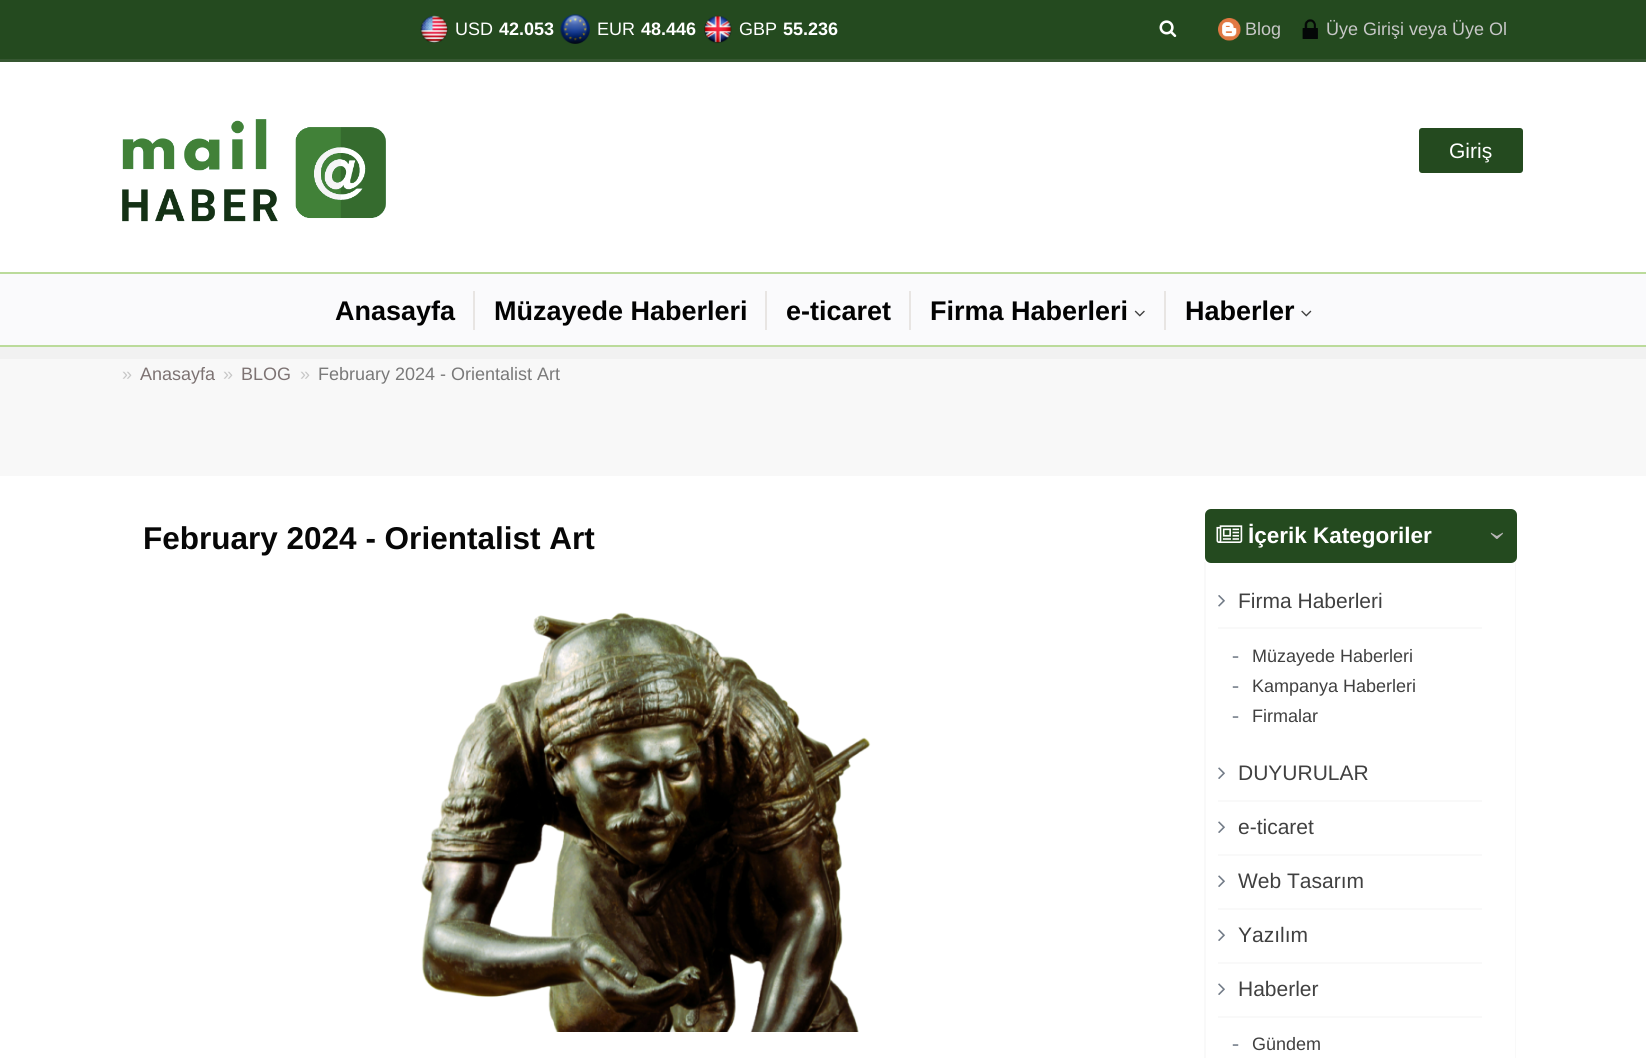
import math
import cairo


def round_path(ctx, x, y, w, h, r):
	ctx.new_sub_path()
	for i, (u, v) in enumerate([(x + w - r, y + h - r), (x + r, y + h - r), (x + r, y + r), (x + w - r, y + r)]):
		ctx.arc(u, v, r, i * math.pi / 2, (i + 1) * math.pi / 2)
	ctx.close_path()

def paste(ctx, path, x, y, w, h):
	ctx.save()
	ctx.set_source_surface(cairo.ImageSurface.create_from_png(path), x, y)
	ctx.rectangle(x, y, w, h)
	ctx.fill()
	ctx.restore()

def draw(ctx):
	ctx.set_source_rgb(1, 1, 1)
	ctx.paint()
	ctx.set_source_rgb(0.945, 0.945, 0.945)
	ctx.rectangle(0, 347, 1646, 12)
	ctx.fill()
	ctx.set_source_rgb(0.141, 0.29, 0.122)
	ctx.rectangle(0, 0, 1646, 59)
	ctx.fill()
	ctx.set_source_rgb(0.212, 0.341, 0.192)
	ctx.rectangle(0, 59, 1646, 3)
	ctx.fill()
	paste(ctx, 'media/1.png', 420, 15, 28, 28)
	ctx.select_font_face('Liberation Sans')
	ctx.set_font_size(18)
	ctx.set_source_rgb(1, 1, 1)
	ctx.move_to(455, 35)
	ctx.show_text('USD')
	ctx.select_font_face('Liberation Sans', cairo.FONT_SLANT_NORMAL, cairo.FONT_WEIGHT_BOLD)
	ctx.move_to(499, 35)
	ctx.show_text('42.053')
	paste(ctx, 'media/2.png', 560, 14, 30, 30)
	ctx.select_font_face('Liberation Sans')
	ctx.move_to(597, 35)
	ctx.show_text('EUR')
	ctx.select_font_face('Liberation Sans', cairo.FONT_SLANT_NORMAL, cairo.FONT_WEIGHT_BOLD)
	ctx.move_to(641, 35)
	ctx.show_text('48.446')
	paste(ctx, 'media/3.png', 704, 15, 28, 29)
	ctx.select_font_face('Liberation Sans')
	ctx.move_to(739, 35)
	ctx.show_text('GBP')
	ctx.select_font_face('Liberation Sans', cairo.FONT_SLANT_NORMAL, cairo.FONT_WEIGHT_BOLD)
	ctx.move_to(783, 35)
	ctx.show_text('55.236')
	paste(ctx, 'media/4.png', 1159, 20, 18, 17)
	paste(ctx, 'media/5.png', 1218, 18, 23, 23)
	ctx.select_font_face('Liberation Sans')
	ctx.set_source_rgb(0.78, 0.78, 0.78)
	ctx.move_to(1245, 35)
	ctx.show_text('Blog')
	paste(ctx, 'media/6.png', 1302, 19, 16, 20)
	ctx.move_to(1326, 35)
	ctx.show_text('Üye Girişi veya Üye Ol')
	paste(ctx, 'media/7.png', 122, 119, 264, 103)
	ctx.set_source_rgb(0.141, 0.29, 0.122)
	round_path(ctx, 1419, 128, 104, 45, 3)
	ctx.fill()
	ctx.set_font_size(21)
	ctx.set_source_rgb(1, 1, 1)
	ctx.move_to(1449, 158)
	ctx.show_text('Giriş')
	ctx.set_source_rgb(0.98, 0.98, 0.988)
	ctx.rectangle(0, 274, 1646, 71)
	ctx.fill()
	ctx.set_source_rgb(0.733, 0.859, 0.608)
	ctx.rectangle(0, 272, 1646, 2)
	ctx.rectangle(0, 345, 1646, 2)
	ctx.fill()
	ctx.select_font_face('Liberation Sans', cairo.FONT_SLANT_NORMAL, cairo.FONT_WEIGHT_BOLD)
	ctx.set_font_size(27)
	ctx.set_source_rgb(0.008, 0.008, 0.008)
	ctx.move_to(335, 320)
	ctx.show_text('Anasayfa')
	ctx.set_source_rgb(0.91, 0.898, 0.89)
	ctx.rectangle(473, 291, 2, 39)
	ctx.fill()
	ctx.set_source_rgb(0.008, 0.008, 0.008)
	ctx.move_to(494, 320)
	ctx.show_text('Müzayede Haberleri')
	ctx.set_source_rgb(0.91, 0.898, 0.89)
	ctx.rectangle(765, 291, 2, 39)
	ctx.fill()
	ctx.set_source_rgb(0.008, 0.008, 0.008)
	ctx.move_to(786, 320)
	ctx.show_text('e-ticaret')
	ctx.set_source_rgb(0.91, 0.898, 0.89)
	ctx.rectangle(909, 291, 2, 39)
	ctx.fill()
	ctx.set_source_rgb(0.008, 0.008, 0.008)
	ctx.move_to(930, 320)
	ctx.show_text('Firma Haberleri')
	paste(ctx, 'media/8.png', 1134, 310, 11, 7)
	ctx.set_source_rgb(0.91, 0.898, 0.89)
	ctx.rectangle(1164, 291, 2, 39)
	ctx.fill()
	ctx.set_source_rgb(0.008, 0.008, 0.008)
	ctx.move_to(1185, 320)
	ctx.show_text('Haberler')
	paste(ctx, 'media/9.png', 1301, 310, 11, 7)
	ctx.set_source_rgb(0.969, 0.969, 0.969)
	ctx.rectangle(0, 359, 1646, 117)
	ctx.fill()
	ctx.select_font_face('Liberation Sans')
	ctx.set_font_size(18)
	ctx.set_source_rgb(0.78, 0.78, 0.78)
	ctx.move_to(122, 380)
	ctx.show_text('»')
	ctx.set_source_rgb(0.49, 0.451, 0.451)
	ctx.move_to(140, 380)
	ctx.show_text('Anasayfa')
	ctx.set_source_rgb(0.78, 0.78, 0.78)
	ctx.move_to(223, 380)
	ctx.show_text('»')
	ctx.set_source_rgb(0.49, 0.451, 0.451)
	ctx.move_to(241, 380)
	ctx.show_text('BLOG')
	ctx.set_source_rgb(0.78, 0.78, 0.78)
	ctx.move_to(300, 380)
	ctx.show_text('»')
	ctx.set_source_rgb(0.475, 0.475, 0.475)
	ctx.move_to(318, 380)
	ctx.show_text('February 2024 - Orientalist Art')
	ctx.select_font_face('Liberation Sans', cairo.FONT_SLANT_NORMAL, cairo.FONT_WEIGHT_BOLD)
	ctx.set_font_size(31.5)
	ctx.set_source_rgb(0.031, 0.031, 0.031)
	ctx.move_to(143, 549)
	ctx.show_text('February 2024 - Orientalist Art')
	paste(ctx, 'media/10.png', 421, 612, 450, 420)
	ctx.set_source_rgb(0.973, 0.973, 0.973)
	ctx.new_path()
	ctx.move_to(1516, 562)
	ctx.line_to(1516, 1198)
	ctx.line_to(1515, 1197)
	ctx.line_to(1515, 562)
	ctx.close_path()
	ctx.fill()
	ctx.new_path()
	ctx.move_to(1204, 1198)
	ctx.line_to(1204, 562)
	ctx.line_to(1206, 562)
	ctx.line_to(1206, 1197)
	ctx.close_path()
	ctx.fill()
	ctx.set_source_rgb(0.141, 0.29, 0.122)
	round_path(ctx, 1205, 509, 312, 54, 6)
	ctx.fill()
	paste(ctx, 'media/11.png', 1216, 525, 27, 18)
	ctx.set_font_size(22.5)
	ctx.set_source_rgb(1, 1, 1)
	ctx.move_to(1248, 543)
	ctx.show_text('İçerik Kategoriler')
	ctx.select_font_face('Liberation Serif')
	ctx.set_font_size(31.5)
	ctx.set_source_rgb(0.718, 0.71, 0.71)
	ctx.save()
	ctx.translate(1504, 541)
	ctx.rotate(-90 * math.pi / 180)
	ctx.move_to(0, 0)
	ctx.show_text('‹')
	ctx.restore()
	ctx.set_source_rgb(0.973, 0.973, 0.973)
	ctx.rectangle(1218, 627, 264, 2)
	ctx.fill()
	paste(ctx, 'media/12.png', 1218, 595, 7, 12)
	ctx.select_font_face('Liberation Sans')
	ctx.set_font_size(21)
	ctx.set_source_rgb(0.251, 0.251, 0.251)
	ctx.move_to(1238, 608)
	ctx.show_text('Firma Haberleri')
	ctx.select_font_face('Liberation Serif')
	ctx.set_source_rgb(0.447, 0.482, 0.529)
	ctx.move_to(1232, 662)
	ctx.show_text('-')
	ctx.select_font_face('Liberation Sans')
	ctx.set_font_size(18)
	ctx.set_source_rgb(0.251, 0.251, 0.251)
	ctx.move_to(1252, 662)
	ctx.show_text('Müzayede Haberleri')
	ctx.select_font_face('Liberation Serif')
	ctx.set_font_size(21)
	ctx.set_source_rgb(0.447, 0.482, 0.529)
	ctx.move_to(1232, 692)
	ctx.show_text('-')
	ctx.select_font_face('Liberation Sans')
	ctx.set_font_size(18)
	ctx.set_source_rgb(0.251, 0.251, 0.251)
	ctx.move_to(1252, 692)
	ctx.show_text('Kampanya Haberleri')
	ctx.select_font_face('Liberation Serif')
	ctx.set_font_size(21)
	ctx.set_source_rgb(0.447, 0.482, 0.529)
	ctx.move_to(1232, 722)
	ctx.show_text('-')
	ctx.select_font_face('Liberation Sans')
	ctx.set_font_size(18)
	ctx.set_source_rgb(0.251, 0.251, 0.251)
	ctx.move_to(1252, 722)
	ctx.show_text('Firmalar')
	ctx.set_source_rgb(0.973, 0.973, 0.973)
	ctx.rectangle(1218, 800, 264, 2)
	ctx.fill()
	paste(ctx, 'media/13.png', 1218, 767, 7, 12)
	ctx.set_font_size(21)
	ctx.set_source_rgb(0.251, 0.251, 0.251)
	ctx.move_to(1238, 780)
	ctx.show_text('DUYURULAR')
	ctx.set_source_rgb(0.973, 0.973, 0.973)
	ctx.rectangle(1218, 854, 264, 2)
	ctx.fill()
	paste(ctx, 'media/13.png', 1218, 821, 7, 12)
	ctx.set_source_rgb(0.251, 0.251, 0.251)
	ctx.move_to(1238, 834)
	ctx.show_text('e-ticaret')
	ctx.set_source_rgb(0.973, 0.973, 0.973)
	ctx.rectangle(1218, 908, 264, 2)
	ctx.fill()
	paste(ctx, 'media/13.png', 1218, 875, 7, 12)
	ctx.set_source_rgb(0.251, 0.251, 0.251)
	ctx.move_to(1238, 888)
	ctx.show_text('Web Tasarım')
	ctx.set_source_rgb(0.973, 0.973, 0.973)
	ctx.rectangle(1218, 962, 264, 2)
	ctx.fill()
	paste(ctx, 'media/13.png', 1218, 929, 7, 12)
	ctx.set_source_rgb(0.251, 0.251, 0.251)
	ctx.move_to(1238, 942)
	ctx.show_text('Yazılım')
	ctx.set_source_rgb(0.973, 0.973, 0.973)
	ctx.rectangle(1218, 1016, 264, 2)
	ctx.fill()
	paste(ctx, 'media/13.png', 1218, 983, 7, 12)
	ctx.set_source_rgb(0.251, 0.251, 0.251)
	ctx.move_to(1238, 996)
	ctx.show_text('Haberler')
	ctx.select_font_face('Liberation Serif')
	ctx.set_source_rgb(0.447, 0.482, 0.529)
	ctx.move_to(1232, 1050)
	ctx.show_text('-')
	ctx.select_font_face('Liberation Sans')
	ctx.set_font_size(18)
	ctx.set_source_rgb(0.251, 0.251, 0.251)
	ctx.move_to(1252, 1050)
	ctx.show_text('Gündem')


surface = cairo.ImageSurface(cairo.FORMAT_RGB24, 1646, 1058)
ctx = cairo.Context(surface)
options = cairo.FontOptions()
options.set_hint_metrics(cairo.HINT_METRICS_OFF)
options.set_hint_style(cairo.HINT_STYLE_NONE)
ctx.set_font_options(options)
ctx.set_miter_limit(4)
draw(ctx)
surface.write_to_png('image.png')
